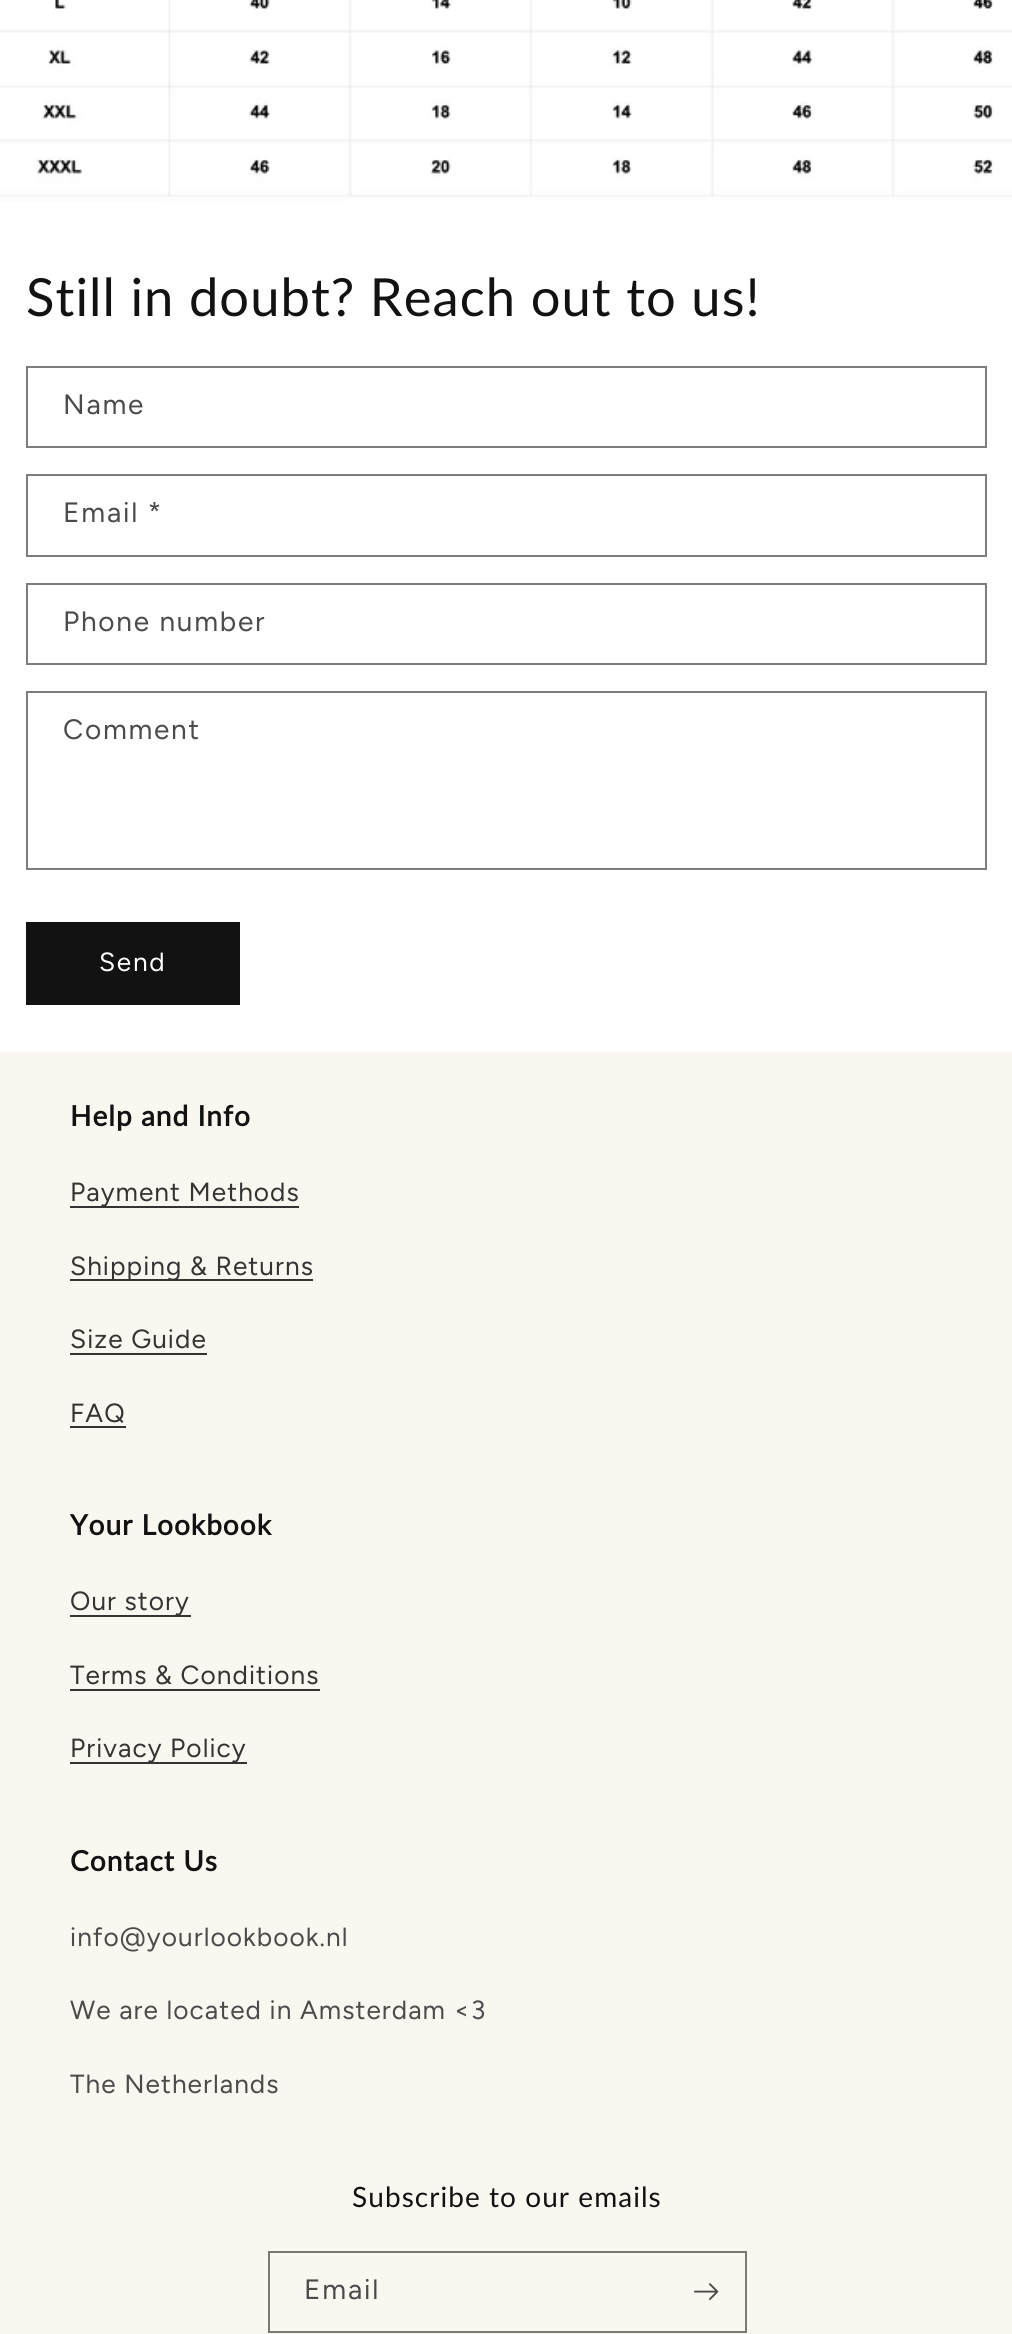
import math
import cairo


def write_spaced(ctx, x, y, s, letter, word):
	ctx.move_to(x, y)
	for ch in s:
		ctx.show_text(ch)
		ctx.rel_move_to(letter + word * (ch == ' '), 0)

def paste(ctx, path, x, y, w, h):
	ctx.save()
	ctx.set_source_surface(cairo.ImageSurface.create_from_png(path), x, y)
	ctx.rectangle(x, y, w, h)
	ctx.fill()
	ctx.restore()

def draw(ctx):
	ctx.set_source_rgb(1, 1, 1)
	ctx.paint()
	paste(ctx, 'media/1.png', 0, 0, 1012, 215)
	ctx.select_font_face('Lato')
	ctx.set_font_size(52.5)
	ctx.set_source_rgb(0.071, 0.071, 0.071)
	write_spaced(ctx, 26, 316, 'Still in doubt? Reach out to us!', 1.05, 0)
	ctx.rectangle(27, 367, 959, 80)
	ctx.set_source_rgb(0.49, 0.49, 0.49)
	ctx.stroke()
	ctx.select_font_face('Figtree')
	ctx.set_font_size(28)
	ctx.set_source_rgb(0.298, 0.294, 0.29)
	write_spaced(ctx, 63, 414, 'Name', 1.75, 0)
	ctx.rectangle(27, 475, 959, 81)
	ctx.set_source_rgb(0.49, 0.49, 0.49)
	ctx.stroke()
	ctx.set_source_rgb(0.298, 0.294, 0.29)
	write_spaced(ctx, 63, 522, 'Email *', 1.75, 0)
	ctx.rectangle(27, 584, 959, 80)
	ctx.set_source_rgb(0.49, 0.49, 0.49)
	ctx.stroke()
	ctx.set_source_rgb(0.298, 0.294, 0.29)
	write_spaced(ctx, 63, 631, 'Phone number', 1.75, 0)
	ctx.rectangle(27, 692, 959, 177)
	ctx.set_source_rgb(0.49, 0.49, 0.49)
	ctx.stroke()
	ctx.set_source_rgb(0.298, 0.294, 0.29)
	write_spaced(ctx, 63, 739, 'Comment', 1.75, 0)
	ctx.set_source_rgb(0.071, 0.071, 0.071)
	ctx.rectangle(26, 922, 214, 83)
	ctx.fill()
	ctx.set_font_size(26.25)
	ctx.set_source_rgb(1, 1, 1)
	write_spaced(ctx, 99, 971, 'Send', 1.75, 0)
	ctx.set_source_rgb(0.973, 0.965, 0.941)
	ctx.rectangle(0, 1052, 1012, 1282)
	ctx.fill()
	ctx.select_font_face('Lato', cairo.FONT_SLANT_NORMAL, cairo.FONT_WEIGHT_BOLD)
	ctx.set_font_size(28)
	ctx.set_source_rgb(0.071, 0.071, 0.071)
	write_spaced(ctx, 70, 1126, 'Help and Info', 1.05, 0)
	ctx.set_source_rgb(0.208, 0.204, 0.2)
	ctx.rectangle(70, 1206, 229, 2)
	ctx.fill()
	ctx.select_font_face('Figtree')
	ctx.set_font_size(26.25)
	ctx.set_source_rgb(0.204, 0.204, 0.2)
	write_spaced(ctx, 70, 1201, 'Payment Methods', 1.05, 0)
	ctx.set_source_rgb(0.208, 0.204, 0.2)
	ctx.rectangle(70, 1279, 243, 2)
	ctx.fill()
	ctx.set_source_rgb(0.204, 0.204, 0.2)
	write_spaced(ctx, 70, 1275, 'Shipping & Returns', 1.05, 0)
	write_spaced(ctx, 70, 1348, 'Size Guide', 1.05, 0)
	ctx.set_source_rgb(0.208, 0.204, 0.2)
	ctx.rectangle(70, 1353, 137, 2)
	ctx.fill()
	ctx.set_source_rgb(0.204, 0.204, 0.2)
	write_spaced(ctx, 70, 1422, 'FAQ', 1.05, 0)
	ctx.set_source_rgb(0.208, 0.204, 0.2)
	ctx.rectangle(70, 1426, 56, 2)
	ctx.fill()
	ctx.select_font_face('Lato', cairo.FONT_SLANT_NORMAL, cairo.FONT_WEIGHT_BOLD)
	ctx.set_font_size(28)
	ctx.set_source_rgb(0.071, 0.071, 0.071)
	write_spaced(ctx, 70, 1535, 'Your Lookbook', 1.05, 0)
	ctx.set_source_rgb(0.208, 0.204, 0.2)
	ctx.rectangle(70, 1615, 121, 2)
	ctx.fill()
	ctx.select_font_face('Figtree')
	ctx.set_font_size(26.25)
	ctx.set_source_rgb(0.204, 0.204, 0.2)
	write_spaced(ctx, 70, 1610, 'Our story', 1.05, 0)
	write_spaced(ctx, 70, 1684, 'Terms & Conditions', 1.05, 0)
	ctx.set_source_rgb(0.208, 0.204, 0.2)
	ctx.rectangle(70, 1689, 250, 2)
	ctx.fill()
	ctx.rectangle(70, 1762, 177, 2)
	ctx.fill()
	ctx.set_source_rgb(0.204, 0.204, 0.2)
	write_spaced(ctx, 70, 1757, 'Privacy Policy', 1.05, 0)
	ctx.select_font_face('Lato', cairo.FONT_SLANT_NORMAL, cairo.FONT_WEIGHT_BOLD)
	ctx.set_font_size(28)
	ctx.set_source_rgb(0.071, 0.071, 0.071)
	write_spaced(ctx, 70, 1871, 'Contact Us', 1.05, 0)
	ctx.select_font_face('Figtree')
	ctx.set_font_size(26.25)
	ctx.set_source_rgb(0.298, 0.294, 0.29)
	for x, y, s in [
		(70, 1946, 'info@yourlookbook.nl'),
		(70, 2019, 'We are located in Amsterdam <3'),
		(70, 2093, 'The Netherlands'),
	]:
		write_spaced(ctx, x, y, s, 1.05, 0)
	ctx.select_font_face('Lato')
	ctx.set_font_size(28)
	ctx.set_source_rgb(0.071, 0.071, 0.071)
	write_spaced(ctx, 352, 2207, 'Subscribe to our emails', 1.05, 0)
	ctx.rectangle(269, 2252, 477, 80)
	ctx.set_source_rgb(0.478, 0.475, 0.463)
	ctx.stroke()
	ctx.select_font_face('Figtree')
	ctx.set_source_rgb(0.298, 0.294, 0.29)
	write_spaced(ctx, 304, 2299, 'Email', 1.75, 0)
	paste(ctx, 'media/2.png', 694, 2283, 25, 17)


surface = cairo.ImageSurface(cairo.FORMAT_RGB24, 1012, 2334)
ctx = cairo.Context(surface)
options = cairo.FontOptions()
options.set_hint_metrics(cairo.HINT_METRICS_OFF)
options.set_hint_style(cairo.HINT_STYLE_NONE)
ctx.set_font_options(options)
ctx.set_miter_limit(4)
draw(ctx)
surface.write_to_png('image.png')
